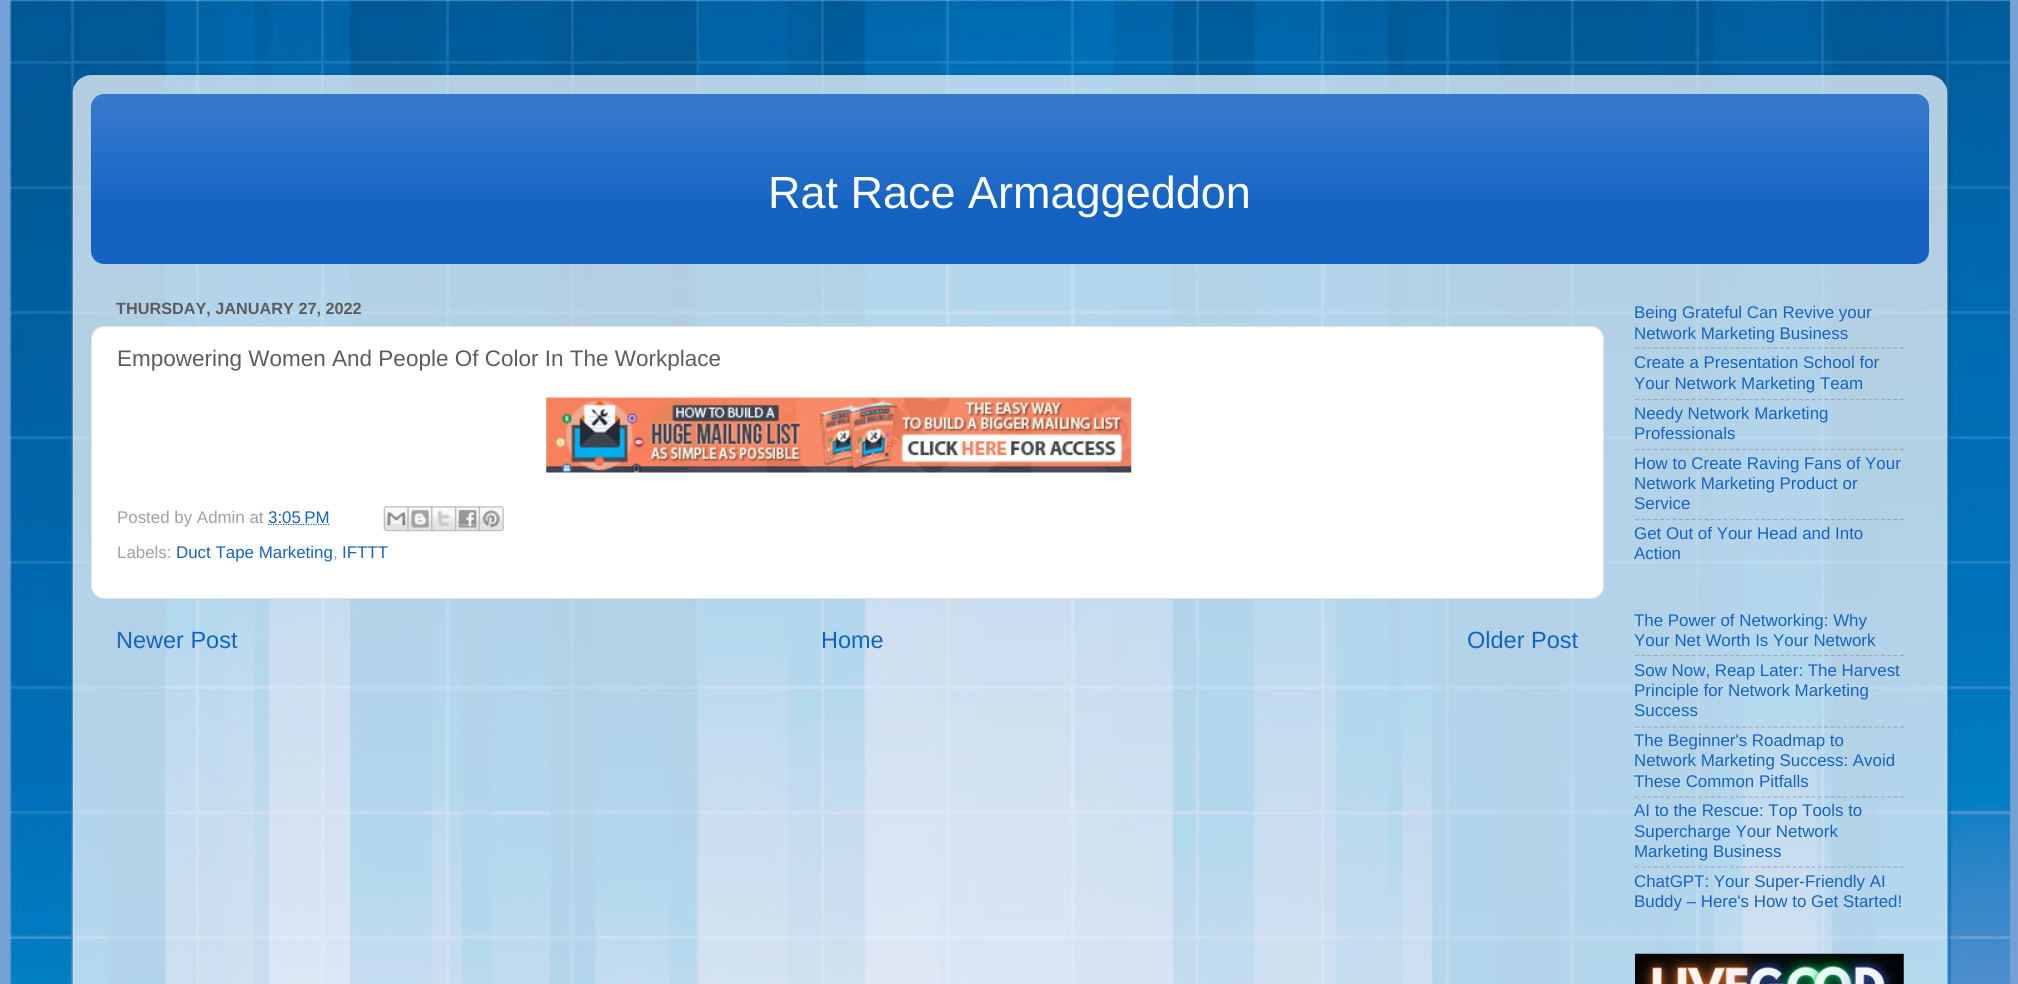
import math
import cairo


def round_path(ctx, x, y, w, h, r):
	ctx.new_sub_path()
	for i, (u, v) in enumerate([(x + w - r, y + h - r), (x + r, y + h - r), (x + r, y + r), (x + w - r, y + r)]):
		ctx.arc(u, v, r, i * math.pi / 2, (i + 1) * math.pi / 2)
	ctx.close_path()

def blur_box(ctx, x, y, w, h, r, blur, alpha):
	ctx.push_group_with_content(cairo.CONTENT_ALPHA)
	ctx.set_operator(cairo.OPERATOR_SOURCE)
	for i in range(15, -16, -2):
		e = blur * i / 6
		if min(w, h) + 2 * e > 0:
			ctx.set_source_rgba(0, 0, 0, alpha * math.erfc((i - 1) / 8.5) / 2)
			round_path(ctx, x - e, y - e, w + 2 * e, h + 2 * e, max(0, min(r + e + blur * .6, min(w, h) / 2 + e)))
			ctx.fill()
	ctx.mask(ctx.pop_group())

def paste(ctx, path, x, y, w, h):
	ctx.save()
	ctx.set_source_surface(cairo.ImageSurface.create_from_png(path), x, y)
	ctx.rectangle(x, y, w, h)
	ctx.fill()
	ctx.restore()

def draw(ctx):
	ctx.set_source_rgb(0.459, 0.627, 0.835)
	ctx.paint()
	paste(ctx, 'media/1.png', 9, 0, 2002, 984)
	ctx.save()
	ctx.set_fill_rule(cairo.FILL_RULE_EVEN_ODD)
	ctx.new_path()
	ctx.move_to(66, 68)
	ctx.line_to(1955, 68)
	ctx.line_to(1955, 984)
	ctx.line_to(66, 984)
	ctx.close_path()
	ctx.move_to(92, 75)
	ctx.line_to(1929, 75)
	ctx.curve_to(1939.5, 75, 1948, 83.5, 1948, 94)
	ctx.line_to(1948, 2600)
	ctx.curve_to(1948, 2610.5, 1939.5, 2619, 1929, 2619)
	ctx.line_to(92, 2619)
	ctx.curve_to(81.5, 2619, 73, 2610.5, 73, 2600)
	ctx.line_to(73, 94)
	ctx.curve_to(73, 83.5, 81.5, 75, 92, 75)
	ctx.close_path()
	ctx.clip()
	ctx.set_source_rgb(0, 0, 0)
	blur_box(ctx, 73, 75, 1875, 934, 19, 2, 0.15)
	ctx.restore()
	paste(ctx, 'media/2.png', 72, 75, 1876, 909)
	ctx.set_source_rgb(0.082, 0.388, 0.765)
	round_path(ctx, 91, 94, 1838, 170, 13)
	ctx.fill()
	paste(ctx, 'media/3.png', 91, 94, 1838, 105)
	ctx.select_font_face('Liberation Sans')
	ctx.set_font_size(45)
	ctx.set_source_rgb(1, 1, 1)
	ctx.move_to(768, 208)
	ctx.show_text('Rat Race Armaggeddon')
	ctx.select_font_face('Liberation Sans', cairo.FONT_SLANT_NORMAL, cairo.FONT_WEIGHT_BOLD)
	ctx.set_font_size(16.25)
	ctx.set_source_rgb(0.361, 0.361, 0.361)
	ctx.move_to(116, 314)
	ctx.show_text('THURSDAY, JANUARY 27, 2022')
	ctx.set_source_rgb(1, 1, 1)
	round_path(ctx, 91.5, 326.5, 1512, 272, 12.5)
	ctx.fill_preserve()
	ctx.set_source_rgb(0.882, 0.882, 0.882)
	ctx.set_line_width(1)
	ctx.stroke()
	ctx.select_font_face('Liberation Sans')
	ctx.set_font_size(22.5)
	ctx.set_source_rgb(0.361, 0.361, 0.361)
	ctx.move_to(117, 366)
	ctx.show_text('Empowering Women And People Of Color In The Workplace')
	paste(ctx, 'media/4.png', 546, 397, 586, 76)
	ctx.set_font_size(16.9)
	ctx.set_source_rgb(0.631, 0.631, 0.631)
	ctx.move_to(117, 523)
	ctx.show_text('Posted by Admin at')
	ctx.new_path()
	ctx.move_to(268, 524.5)
	ctx.line_to(329.5, 524.5)
	ctx.set_source_rgb(0.082, 0.388, 0.765)
	ctx.set_line_width(1.2)
	ctx.set_dash([1.25, 1.25])
	ctx.stroke()
	ctx.move_to(268, 523)
	ctx.show_text('3:05 PM')
	paste(ctx, 'media/5.png', 383, 506, 26, 26)
	paste(ctx, 'media/6.png', 407, 506, 26, 26)
	paste(ctx, 'media/7.png', 431, 506, 26, 26)
	paste(ctx, 'media/8.png', 455, 506, 25, 26)
	paste(ctx, 'media/9.png', 478, 506, 26, 26)
	ctx.set_source_rgb(0.631, 0.631, 0.631)
	ctx.move_to(117, 558)
	ctx.show_text('Labels:')
	ctx.set_source_rgb(0.082, 0.388, 0.765)
	ctx.move_to(176, 558)
	ctx.show_text('Duct Tape Marketing')
	ctx.move_to(342, 558)
	ctx.show_text('IFTTT')
	ctx.set_source_rgb(0.631, 0.631, 0.631)
	ctx.move_to(333, 558)
	ctx.show_text(',')
	ctx.set_font_size(23.5)
	ctx.set_source_rgb(0.082, 0.388, 0.765)
	for x, y, s in [
		(116, 648, 'Newer Post'),
		(821, 648, 'Home'),
		(1467, 648, 'Older Post'),
	]:
		ctx.move_to(x, y)
		ctx.show_text(s)
	ctx.set_font_size(16.9)
	ctx.move_to(1634, 318)
	ctx.show_text('Being Grateful Can Revive your')
	ctx.move_to(1634, 339)
	ctx.show_text('Network Marketing Business')
	ctx.new_path()
	ctx.move_to(1635, 348)
	ctx.line_to(1904, 348)
	ctx.set_source_rgba(0.502, 0.502, 0.502, 0.5)
	ctx.set_dash([3.75, 2.56])
	ctx.stroke()
	ctx.set_source_rgb(0.082, 0.388, 0.765)
	ctx.move_to(1634, 368)
	ctx.show_text('Create a Presentation School for')
	ctx.move_to(1634, 389)
	ctx.show_text('Your Network Marketing Team')
	ctx.new_path()
	ctx.move_to(1635, 399.5)
	ctx.line_to(1904, 399.5)
	ctx.set_source_rgba(0.502, 0.502, 0.502, 0.5)
	ctx.stroke()
	ctx.set_source_rgb(0.082, 0.388, 0.765)
	ctx.move_to(1634, 419)
	ctx.show_text('Needy Network Marketing')
	ctx.move_to(1634, 439)
	ctx.show_text('Professionals')
	ctx.new_path()
	ctx.move_to(1635, 449.5)
	ctx.line_to(1904, 449.5)
	ctx.set_source_rgba(0.502, 0.502, 0.502, 0.5)
	ctx.stroke()
	ctx.set_source_rgb(0.082, 0.388, 0.765)
	for x, y, s in [
		(1634, 469, 'How to Create Raving Fans of Your'),
		(1634, 489, 'Network Marketing Product or'),
		(1634, 509, 'Service'),
	]:
		ctx.move_to(x, y)
		ctx.show_text(s)
	ctx.new_path()
	ctx.move_to(1635, 519.5)
	ctx.line_to(1904, 519.5)
	ctx.set_source_rgba(0.502, 0.502, 0.502, 0.5)
	ctx.stroke()
	ctx.set_source_rgb(0.082, 0.388, 0.765)
	for x, y, s in [
		(1634, 539, 'Get Out of Your Head and Into'),
		(1634, 559, 'Action'),
		(1634, 626, 'The Power of Networking: Why'),
		(1634, 646, 'Your Net Worth Is Your Network'),
	]:
		ctx.move_to(x, y)
		ctx.show_text(s)
	ctx.new_path()
	ctx.move_to(1635, 655.5)
	ctx.line_to(1904, 655.5)
	ctx.set_source_rgba(0.502, 0.502, 0.502, 0.5)
	ctx.stroke()
	ctx.set_source_rgb(0.082, 0.388, 0.765)
	for x, y, s in [
		(1634, 676, 'Sow Now, Reap Later: The Harvest'),
		(1634, 696, 'Principle for Network Marketing'),
		(1634, 716, 'Success'),
	]:
		ctx.move_to(x, y)
		ctx.show_text(s)
	ctx.new_path()
	ctx.move_to(1635, 727)
	ctx.line_to(1904, 727)
	ctx.set_source_rgba(0.502, 0.502, 0.502, 0.5)
	ctx.stroke()
	ctx.set_source_rgb(0.082, 0.388, 0.765)
	for x, y, s in [
		(1634, 746, 'The Beginner\'s Roadmap to'),
		(1634, 766, 'Network Marketing Success: Avoid'),
		(1634, 787, 'These Common Pitfalls'),
	]:
		ctx.move_to(x, y)
		ctx.show_text(s)
	ctx.new_path()
	ctx.move_to(1635, 797)
	ctx.line_to(1904, 797)
	ctx.set_source_rgba(0.502, 0.502, 0.502, 0.5)
	ctx.stroke()
	ctx.set_source_rgb(0.082, 0.388, 0.765)
	for x, y, s in [
		(1634, 816, 'AI to the Rescue: Top Tools to'),
		(1634, 837, 'Supercharge Your Network'),
		(1634, 857, 'Marketing Business'),
	]:
		ctx.move_to(x, y)
		ctx.show_text(s)
	ctx.new_path()
	ctx.move_to(1635, 867)
	ctx.line_to(1904, 867)
	ctx.set_source_rgba(0.502, 0.502, 0.502, 0.5)
	ctx.stroke()
	ctx.set_source_rgb(0.082, 0.388, 0.765)
	ctx.move_to(1634, 887)
	ctx.show_text('ChatGPT: Your Super-Friendly AI')
	ctx.move_to(1634, 907)
	ctx.show_text('Buddy – Here\'s How to Get Started!')
	paste(ctx, 'media/10.png', 1635, 953, 269, 31)


surface = cairo.ImageSurface(cairo.FORMAT_RGB24, 2018, 984)
ctx = cairo.Context(surface)
options = cairo.FontOptions()
options.set_hint_metrics(cairo.HINT_METRICS_OFF)
options.set_hint_style(cairo.HINT_STYLE_NONE)
ctx.set_font_options(options)
ctx.set_miter_limit(4)
draw(ctx)
surface.write_to_png('image.png')
